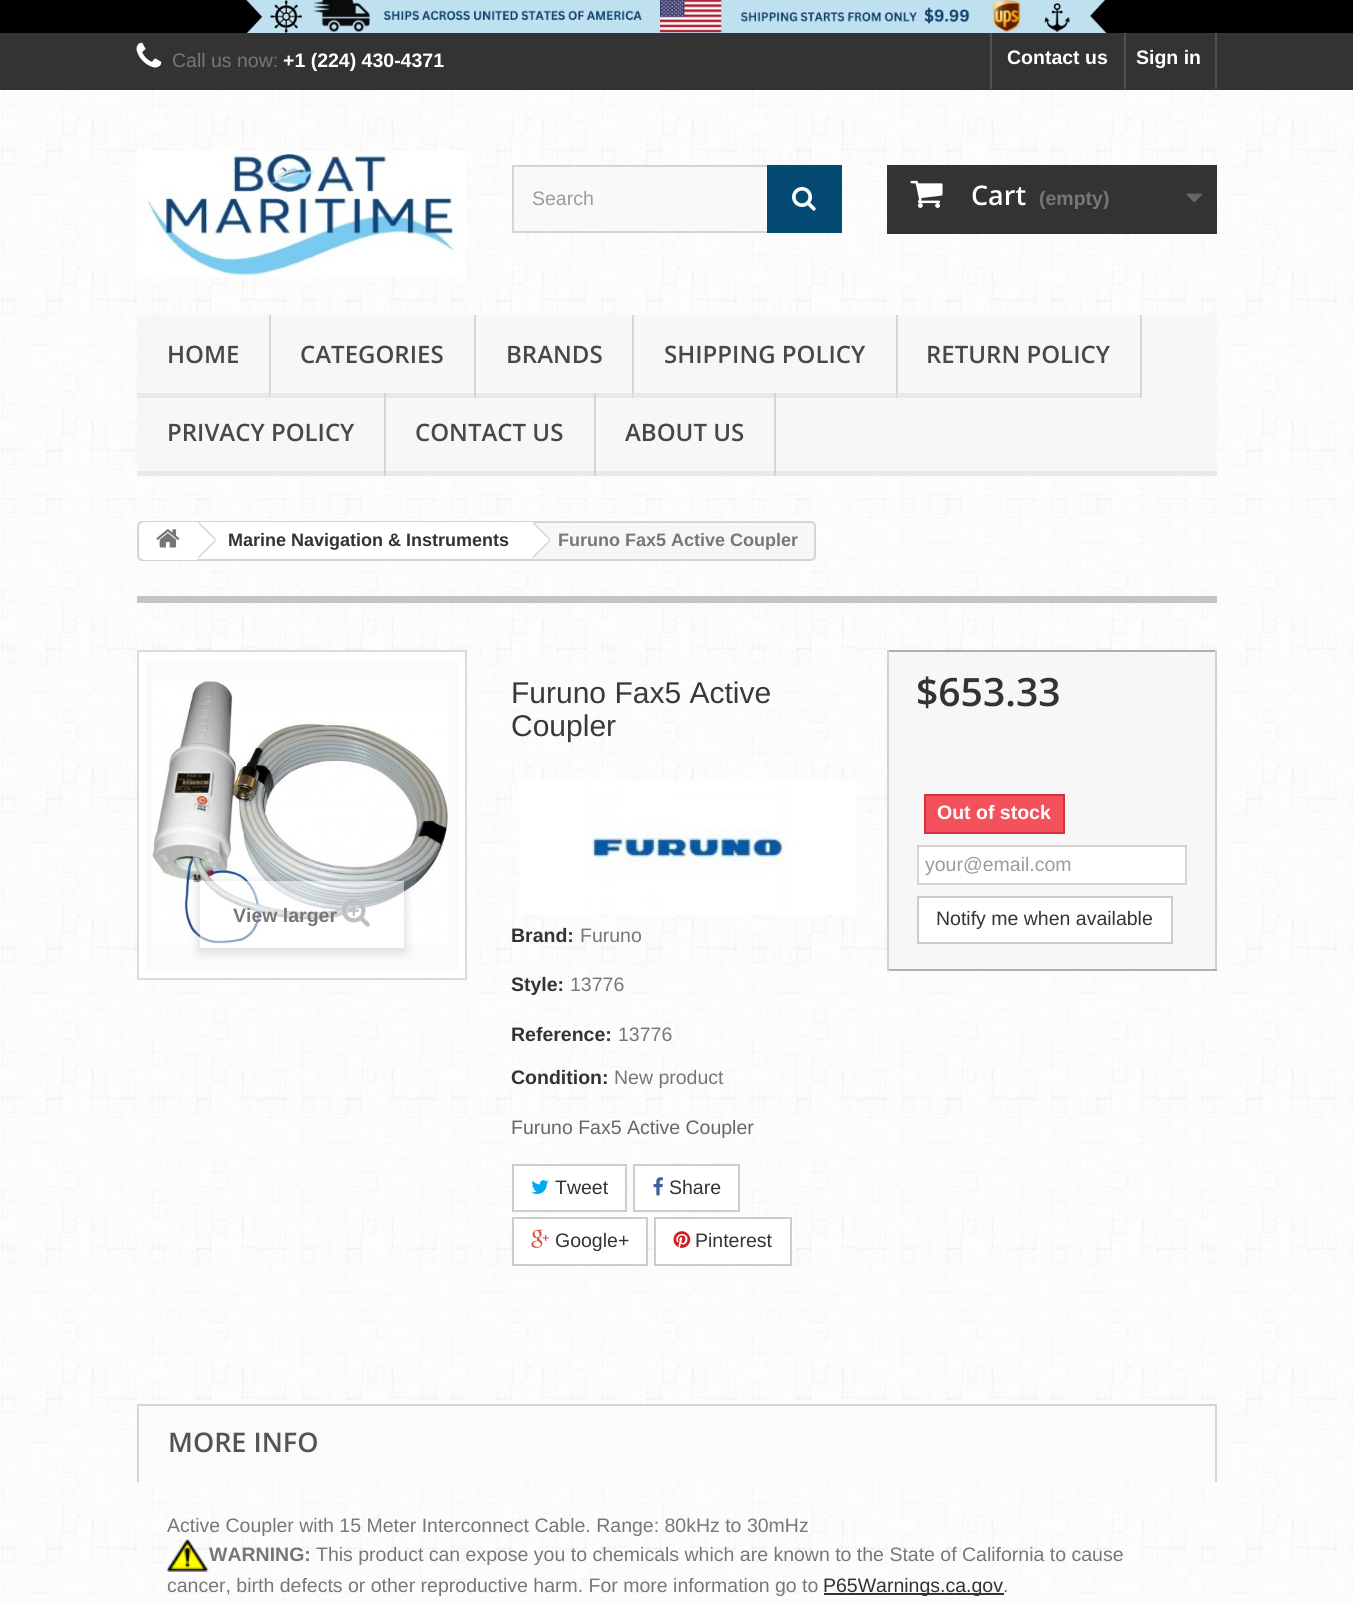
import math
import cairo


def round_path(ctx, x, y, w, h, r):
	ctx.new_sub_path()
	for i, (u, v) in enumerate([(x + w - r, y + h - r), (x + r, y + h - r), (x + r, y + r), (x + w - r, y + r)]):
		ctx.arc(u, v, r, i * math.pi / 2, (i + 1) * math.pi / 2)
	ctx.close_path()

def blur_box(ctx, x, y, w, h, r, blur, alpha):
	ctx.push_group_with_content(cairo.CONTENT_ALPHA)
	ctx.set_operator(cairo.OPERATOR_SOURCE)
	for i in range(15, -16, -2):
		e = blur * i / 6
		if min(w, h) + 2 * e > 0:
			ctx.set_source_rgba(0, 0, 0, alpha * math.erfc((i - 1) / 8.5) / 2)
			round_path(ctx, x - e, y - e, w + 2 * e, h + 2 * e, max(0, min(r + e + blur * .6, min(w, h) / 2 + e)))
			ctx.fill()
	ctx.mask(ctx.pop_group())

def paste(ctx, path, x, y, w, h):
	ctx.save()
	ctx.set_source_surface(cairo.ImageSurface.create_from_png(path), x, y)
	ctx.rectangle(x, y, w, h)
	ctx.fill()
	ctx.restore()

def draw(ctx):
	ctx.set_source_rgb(1, 1, 1)
	ctx.paint()
	paste(ctx, 'media/1.png', 0, 90, 1353, 408)
	ctx.set_source_rgb(0, 0, 0)
	ctx.rectangle(0, 0, 1353, 33)
	ctx.fill()
	paste(ctx, 'media/2.png', 246, 0, 861, 33)
	ctx.set_source_rgb(0.2, 0.2, 0.2)
	ctx.rectangle(0, 33, 1353, 57)
	ctx.fill()
	paste(ctx, 'media/3.png', 136, 42, 26, 26)
	ctx.select_font_face('Liberation Sans')
	ctx.set_font_size(19.5)
	ctx.set_source_rgb(0.467, 0.467, 0.467)
	ctx.move_to(172, 67)
	ctx.show_text('Call us now:')
	ctx.select_font_face('Liberation Sans', cairo.FONT_SLANT_NORMAL, cairo.FONT_WEIGHT_BOLD)
	ctx.set_source_rgb(1, 1, 1)
	ctx.move_to(283, 67)
	ctx.show_text('+1 (224) 430-4371')
	ctx.set_source_rgb(0.318, 0.318, 0.318)
	ctx.rectangle(990, 33, 2, 56)
	ctx.fill()
	ctx.set_source_rgb(1, 1, 1)
	ctx.move_to(1007, 64)
	ctx.show_text('Contact us')
	ctx.set_source_rgb(0.318, 0.318, 0.318)
	ctx.rectangle(1215, 33, 2, 56)
	ctx.fill()
	ctx.rectangle(1124, 33, 2, 56)
	ctx.fill()
	ctx.set_source_rgb(1, 1, 1)
	ctx.move_to(1136, 64)
	ctx.show_text('Sign in')
	paste(ctx, 'media/4.png', 136, 150, 330, 128)
	ctx.set_source_rgba(0.973, 0.973, 0.973, 0.63)
	ctx.rectangle(514, 167, 253, 64)
	ctx.fill()
	ctx.rectangle(513, 166, 328, 66)
	ctx.set_source_rgb(0.839, 0.831, 0.831)
	ctx.stroke()
	ctx.select_font_face('Liberation Sans')
	ctx.set_source_rgb(0.612, 0.608, 0.608)
	ctx.move_to(532, 205)
	ctx.show_text('Search')
	ctx.set_source_rgb(0.02, 0.286, 0.459)
	ctx.rectangle(767, 165, 75, 68)
	ctx.fill()
	paste(ctx, 'media/5.png', 792, 187, 24, 24)
	ctx.set_source_rgb(0.2, 0.2, 0.2)
	ctx.rectangle(887, 165, 330, 69)
	ctx.fill()
	paste(ctx, 'media/6.png', 910, 180, 33, 28)
	ctx.select_font_face('Open Sans SemiBold')
	ctx.set_font_size(27)
	ctx.set_source_rgb(1, 1, 1)
	ctx.move_to(971, 205)
	ctx.show_text('Cart')
	ctx.select_font_face('Liberation Sans', cairo.FONT_SLANT_NORMAL, cairo.FONT_WEIGHT_BOLD)
	ctx.set_font_size(19.5)
	ctx.set_source_rgb(0.467, 0.467, 0.467)
	ctx.move_to(1039, 205)
	ctx.show_text('(empty)')
	paste(ctx, 'media/7.png', 1186, 193, 16, 10)
	ctx.set_source_rgb(0.965, 0.965, 0.965)
	ctx.rectangle(137, 315, 1080, 156)
	ctx.fill()
	ctx.set_source_rgb(0.914, 0.914, 0.914)
	ctx.rectangle(137, 471, 1080, 5)
	ctx.fill()
	ctx.set_source_rgb(0.839, 0.831, 0.831)
	ctx.rectangle(269, 315, 2, 83)
	ctx.fill()
	ctx.set_source_rgb(0.914, 0.914, 0.914)
	ctx.rectangle(137, 393, 132, 5)
	ctx.fill()
	ctx.select_font_face('Open Sans SemiBold')
	ctx.set_font_size(24)
	ctx.set_source_rgb(0.282, 0.282, 0.282)
	ctx.move_to(167, 363)
	ctx.show_text('HOME')
	ctx.set_source_rgb(0.839, 0.831, 0.831)
	ctx.rectangle(474, 315, 2, 83)
	ctx.fill()
	ctx.set_source_rgb(0.914, 0.914, 0.914)
	ctx.rectangle(270, 393, 204, 5)
	ctx.fill()
	ctx.set_source_rgb(0.282, 0.282, 0.282)
	ctx.move_to(300, 363)
	ctx.show_text('CATEGORIES')
	ctx.set_source_rgb(0.839, 0.831, 0.831)
	ctx.rectangle(632, 315, 2, 83)
	ctx.fill()
	ctx.set_source_rgb(0.914, 0.914, 0.914)
	ctx.rectangle(476, 393, 156, 5)
	ctx.fill()
	ctx.set_source_rgb(0.282, 0.282, 0.282)
	ctx.move_to(506, 363)
	ctx.show_text('BRANDS')
	ctx.set_source_rgb(0.839, 0.831, 0.831)
	ctx.rectangle(896, 315, 2, 83)
	ctx.fill()
	ctx.set_source_rgb(0.914, 0.914, 0.914)
	ctx.rectangle(633, 393, 263, 5)
	ctx.fill()
	ctx.set_source_rgb(0.282, 0.282, 0.282)
	ctx.move_to(664, 363)
	ctx.show_text('SHIPPING POLICY')
	ctx.set_source_rgb(0.839, 0.831, 0.831)
	ctx.rectangle(1140, 315, 2, 83)
	ctx.fill()
	ctx.set_source_rgb(0.914, 0.914, 0.914)
	ctx.rectangle(897, 393, 243, 5)
	ctx.fill()
	ctx.set_source_rgb(0.282, 0.282, 0.282)
	ctx.move_to(926, 363)
	ctx.show_text('RETURN POLICY')
	ctx.set_source_rgb(0.839, 0.831, 0.831)
	ctx.rectangle(384, 393, 2, 83)
	ctx.fill()
	ctx.set_source_rgb(0.282, 0.282, 0.282)
	ctx.move_to(167, 441)
	ctx.show_text('PRIVACY POLICY')
	ctx.set_source_rgb(0.839, 0.831, 0.831)
	ctx.rectangle(594, 393, 2, 83)
	ctx.fill()
	ctx.set_source_rgb(0.282, 0.282, 0.282)
	ctx.move_to(415, 441)
	ctx.show_text('CONTACT US')
	ctx.set_source_rgb(0.839, 0.831, 0.831)
	ctx.rectangle(774, 393, 2, 83)
	ctx.fill()
	ctx.set_source_rgb(0.282, 0.282, 0.282)
	ctx.move_to(625, 441)
	ctx.show_text('ABOUT US')
	paste(ctx, 'media/8.png', 0, 498, 1353, 1107)
	ctx.set_source_rgb(0.965, 0.965, 0.965)
	round_path(ctx, 138, 522, 677, 38, 4)
	ctx.fill_preserve()
	ctx.set_source_rgb(0.839, 0.831, 0.831)
	ctx.stroke()
	ctx.set_source_rgb(1, 1, 1)
	ctx.new_path()
	ctx.move_to(145, 522)
	ctx.line_to(197, 522)
	ctx.line_to(197, 560)
	ctx.line_to(145, 560)
	ctx.curve_to(142, 560, 140, 558, 140, 555)
	ctx.line_to(140, 527)
	ctx.curve_to(140, 524, 142, 522, 145, 522)
	ctx.close_path()
	ctx.fill()
	paste(ctx, 'media/9.png', 156, 529, 24, 19)
	ctx.rectangle(197, 522, 334, 36)
	ctx.fill()
	ctx.set_source_rgb(0.839, 0.831, 0.831)
	ctx.new_path()
	ctx.move_to(199, 522)
	ctx.line_to(216, 539)
	ctx.line_to(215, 540)
	ctx.line_to(198, 523)
	ctx.close_path()
	ctx.move_to(215, 540)
	ctx.line_to(216, 541)
	ctx.line_to(199, 558)
	ctx.line_to(198, 557)
	ctx.close_path()
	ctx.fill()
	ctx.select_font_face('Liberation Sans', cairo.FONT_SLANT_NORMAL, cairo.FONT_WEIGHT_BOLD)
	ctx.set_font_size(18)
	ctx.set_source_rgb(0.2, 0.2, 0.2)
	ctx.move_to(228, 546)
	ctx.show_text('Marine Navigation & Instruments')
	ctx.set_source_rgb(1, 1, 1)
	ctx.new_path()
	ctx.move_to(534.5, 523)
	ctx.line_to(549.5, 538)
	ctx.curve_to(550.5, 539, 550.5, 541, 549.5, 542)
	ctx.line_to(534.5, 557)
	ctx.curve_to(533.5, 558, 531.5, 558, 530.5, 557)
	ctx.line_to(515.5, 542)
	ctx.curve_to(514.5, 541, 514.5, 539, 515.5, 538)
	ctx.line_to(530.5, 523)
	ctx.curve_to(531.5, 521.5, 533.5, 521.5, 534.5, 523)
	ctx.close_path()
	ctx.fill()
	ctx.set_source_rgb(0.839, 0.831, 0.831)
	ctx.new_path()
	ctx.move_to(533.5, 522)
	ctx.line_to(550.5, 539)
	ctx.line_to(549.5, 540)
	ctx.line_to(532.5, 523)
	ctx.close_path()
	ctx.move_to(549.5, 540)
	ctx.line_to(550.5, 541)
	ctx.line_to(533.5, 558)
	ctx.line_to(532.5, 557)
	ctx.close_path()
	ctx.fill()
	ctx.set_source_rgb(0.467, 0.467, 0.467)
	ctx.move_to(558, 546)
	ctx.show_text('Furuno Fax5 Active Coupler')
	ctx.set_source_rgb(0.769, 0.769, 0.769)
	ctx.rectangle(137, 596, 1080, 7)
	ctx.fill()
	ctx.set_source_rgb(1, 1, 1)
	ctx.rectangle(138, 651, 328, 328)
	ctx.fill_preserve()
	ctx.set_source_rgb(0.859, 0.859, 0.859)
	ctx.stroke()
	ctx.set_source_rgb(0.984, 0.984, 0.984)
	ctx.rectangle(146, 659, 312, 312)
	ctx.fill()
	paste(ctx, 'media/10.png', 152, 681, 296, 263)
	ctx.save()
	ctx.set_fill_rule(cairo.FILL_RULE_EVEN_ODD)
	ctx.new_path()
	ctx.move_to(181, 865)
	ctx.line_to(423, 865)
	ctx.line_to(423, 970)
	ctx.line_to(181, 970)
	ctx.close_path()
	ctx.move_to(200, 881)
	ctx.line_to(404, 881)
	ctx.line_to(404, 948)
	ctx.line_to(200, 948)
	ctx.close_path()
	ctx.clip()
	ctx.set_source_rgb(0, 0, 0)
	blur_box(ctx, 200, 884, 204, 67, 0, 6, 0.16)
	ctx.restore()
	ctx.set_source_rgba(1, 1, 1, 0.5)
	ctx.rectangle(200, 881, 204, 67)
	ctx.fill()
	ctx.set_font_size(19.5)
	ctx.set_source_rgb(0.467, 0.467, 0.467)
	ctx.move_to(233, 922)
	ctx.show_text('View larger')
	paste(ctx, 'media/11.png', 342, 899, 28, 28)
	ctx.select_font_face('Liberation Sans')
	ctx.set_font_size(30)
	ctx.set_source_rgb(0.227, 0.224, 0.224)
	ctx.move_to(511, 703)
	ctx.show_text('Furuno Fax5 Active')
	ctx.move_to(511, 736)
	ctx.show_text('Coupler')
	paste(ctx, 'media/12.png', 519, 780, 337, 135)
	ctx.select_font_face('Liberation Sans', cairo.FONT_SLANT_NORMAL, cairo.FONT_WEIGHT_BOLD)
	ctx.set_font_size(19.5)
	ctx.set_source_rgb(0.2, 0.2, 0.2)
	ctx.move_to(511, 942)
	ctx.show_text('Brand:')
	ctx.select_font_face('Liberation Sans')
	ctx.set_source_rgb(0.467, 0.467, 0.467)
	ctx.move_to(580, 942)
	ctx.show_text('Furuno')
	ctx.select_font_face('Liberation Sans', cairo.FONT_SLANT_NORMAL, cairo.FONT_WEIGHT_BOLD)
	ctx.set_source_rgb(0.2, 0.2, 0.2)
	ctx.move_to(511, 991)
	ctx.show_text('Style:')
	ctx.select_font_face('Liberation Sans')
	ctx.set_source_rgb(0.467, 0.467, 0.467)
	ctx.move_to(570, 991)
	ctx.show_text('13776')
	ctx.select_font_face('Liberation Sans', cairo.FONT_SLANT_NORMAL, cairo.FONT_WEIGHT_BOLD)
	ctx.set_source_rgb(0.2, 0.2, 0.2)
	ctx.move_to(511, 1041)
	ctx.show_text('Reference:')
	ctx.select_font_face('Liberation Sans')
	ctx.set_source_rgb(0.467, 0.467, 0.467)
	ctx.move_to(618, 1041)
	ctx.show_text('13776')
	ctx.select_font_face('Liberation Sans', cairo.FONT_SLANT_NORMAL, cairo.FONT_WEIGHT_BOLD)
	ctx.set_source_rgb(0.2, 0.2, 0.2)
	ctx.move_to(511, 1084)
	ctx.show_text('Condition:')
	ctx.select_font_face('Liberation Sans')
	ctx.set_source_rgb(0.467, 0.467, 0.467)
	ctx.move_to(614, 1084)
	ctx.show_text('New product')
	ctx.set_source_rgb(0.4, 0.4, 0.4)
	ctx.move_to(511, 1134)
	ctx.show_text('Furuno Fax5 Active Coupler')
	ctx.set_source_rgb(1, 1, 1)
	ctx.rectangle(513, 1165, 113, 46)
	ctx.fill_preserve()
	ctx.set_source_rgb(0.8, 0.8, 0.8)
	ctx.stroke()
	paste(ctx, 'media/13.png', 531, 1180, 18, 14)
	ctx.set_source_rgb(0.2, 0.2, 0.2)
	ctx.move_to(555, 1194)
	ctx.show_text('Tweet')
	ctx.set_source_rgb(1, 1, 1)
	ctx.rectangle(634, 1165, 105, 46)
	ctx.fill_preserve()
	ctx.set_source_rgb(0.8, 0.8, 0.8)
	ctx.stroke()
	paste(ctx, 'media/14.png', 653, 1177, 10, 19)
	ctx.set_source_rgb(0.2, 0.2, 0.2)
	ctx.move_to(669, 1194)
	ctx.show_text('Share')
	ctx.set_source_rgb(1, 1, 1)
	ctx.rectangle(513, 1218, 134, 47)
	ctx.fill_preserve()
	ctx.set_source_rgb(0.8, 0.8, 0.8)
	ctx.stroke()
	paste(ctx, 'media/15.png', 531, 1229, 18, 19)
	ctx.set_source_rgb(0.2, 0.2, 0.2)
	ctx.move_to(555, 1247)
	ctx.show_text('Google+')
	ctx.set_source_rgb(1, 1, 1)
	ctx.rectangle(655, 1218, 136, 47)
	ctx.fill_preserve()
	ctx.set_source_rgb(0.8, 0.8, 0.8)
	ctx.stroke()
	paste(ctx, 'media/16.png', 673, 1231, 18, 17)
	ctx.set_source_rgb(0.2, 0.2, 0.2)
	ctx.move_to(695, 1247)
	ctx.show_text('Pinterest')
	ctx.set_source_rgb(0.965, 0.965, 0.965)
	ctx.rectangle(889, 652, 326, 317)
	ctx.fill()
	ctx.set_source_rgb(0.69, 0.686, 0.686)
	ctx.rectangle(887, 650, 330, 2)
	ctx.fill()
	ctx.set_source_rgb(0.824, 0.816, 0.816)
	ctx.rectangle(1215, 650, 2, 321)
	ctx.fill()
	ctx.set_source_rgb(0.69, 0.686, 0.686)
	ctx.rectangle(887, 969, 330, 2)
	ctx.fill()
	ctx.set_source_rgb(0.824, 0.816, 0.816)
	ctx.rectangle(887, 650, 2, 321)
	ctx.fill()
	ctx.select_font_face('Open Sans SemiBold')
	ctx.set_font_size(39)
	ctx.set_source_rgb(0.2, 0.2, 0.2)
	ctx.move_to(916, 706)
	ctx.show_text('$653.33')
	ctx.set_source_rgb(0.953, 0.318, 0.361)
	ctx.rectangle(925, 795, 139, 38)
	ctx.fill_preserve()
	ctx.set_source_rgb(0.831, 0.196, 0.239)
	ctx.stroke()
	ctx.select_font_face('Liberation Sans', cairo.FONT_SLANT_NORMAL, cairo.FONT_WEIGHT_BOLD)
	ctx.set_font_size(19.5)
	ctx.set_source_rgb(1, 1, 1)
	ctx.move_to(937, 819)
	ctx.show_text('Out of stock')
	ctx.rectangle(918, 846, 268, 38)
	ctx.fill_preserve()
	ctx.set_source_rgb(0.839, 0.831, 0.831)
	ctx.stroke()
	ctx.select_font_face('Liberation Sans')
	ctx.set_source_rgb(0.612, 0.608, 0.608)
	ctx.move_to(925, 871)
	ctx.show_text('your@email.com')
	ctx.set_source_rgb(1, 1, 1)
	ctx.rectangle(918, 897, 254, 46)
	ctx.fill_preserve()
	ctx.set_source_rgb(0.8, 0.8, 0.8)
	ctx.stroke()
	ctx.set_source_rgb(0.2, 0.2, 0.2)
	ctx.move_to(936, 925)
	ctx.show_text('Notify me when available')
	ctx.set_source_rgb(0.984, 0.984, 0.984)
	ctx.rectangle(140, 1406, 1075, 76)
	ctx.fill()
	ctx.set_source_rgb(0.839, 0.831, 0.831)
	ctx.rectangle(137, 1404, 1080, 2)
	ctx.rectangle(1215, 1404, 2, 78)
	ctx.rectangle(137, 1404, 2, 78)
	ctx.fill()
	ctx.select_font_face('Open Sans SemiBold')
	ctx.set_font_size(27)
	ctx.set_source_rgb(0.333, 0.329, 0.329)
	ctx.move_to(168, 1452)
	ctx.show_text('MORE INFO')
	ctx.select_font_face('Liberation Sans')
	ctx.set_font_size(19.5)
	ctx.set_source_rgb(0.467, 0.467, 0.467)
	ctx.move_to(167, 1532)
	ctx.show_text('Active Coupler with 15 Meter Interconnect Cable. Range: 80kHz to 30mHz')
	paste(ctx, 'media/17.png', 166, 1539, 43, 33)
	ctx.select_font_face('Liberation Sans', cairo.FONT_SLANT_NORMAL, cairo.FONT_WEIGHT_BOLD)
	ctx.move_to(209, 1561)
	ctx.show_text('WARNING:')
	ctx.select_font_face('Liberation Sans')
	ctx.move_to(316, 1561)
	ctx.show_text('This product can expose you to chemicals which are known to the State of California to cause')
	ctx.move_to(167, 1592)
	ctx.show_text('cancer, birth defects or other reproductive harm. For more information go to')
	ctx.set_source_rgb(0.2, 0.2, 0.2)
	ctx.rectangle(824, 1593, 180, 2)
	ctx.fill()
	ctx.move_to(823, 1592)
	ctx.show_text('P65Warnings.ca.gov')
	ctx.set_source_rgb(0.467, 0.467, 0.467)
	ctx.move_to(1003, 1592)
	ctx.show_text('.')


surface = cairo.ImageSurface(cairo.FORMAT_RGB24, 1353, 1605)
ctx = cairo.Context(surface)
options = cairo.FontOptions()
options.set_hint_metrics(cairo.HINT_METRICS_OFF)
options.set_hint_style(cairo.HINT_STYLE_NONE)
ctx.set_font_options(options)
ctx.set_miter_limit(4)
draw(ctx)
surface.write_to_png('image.png')
